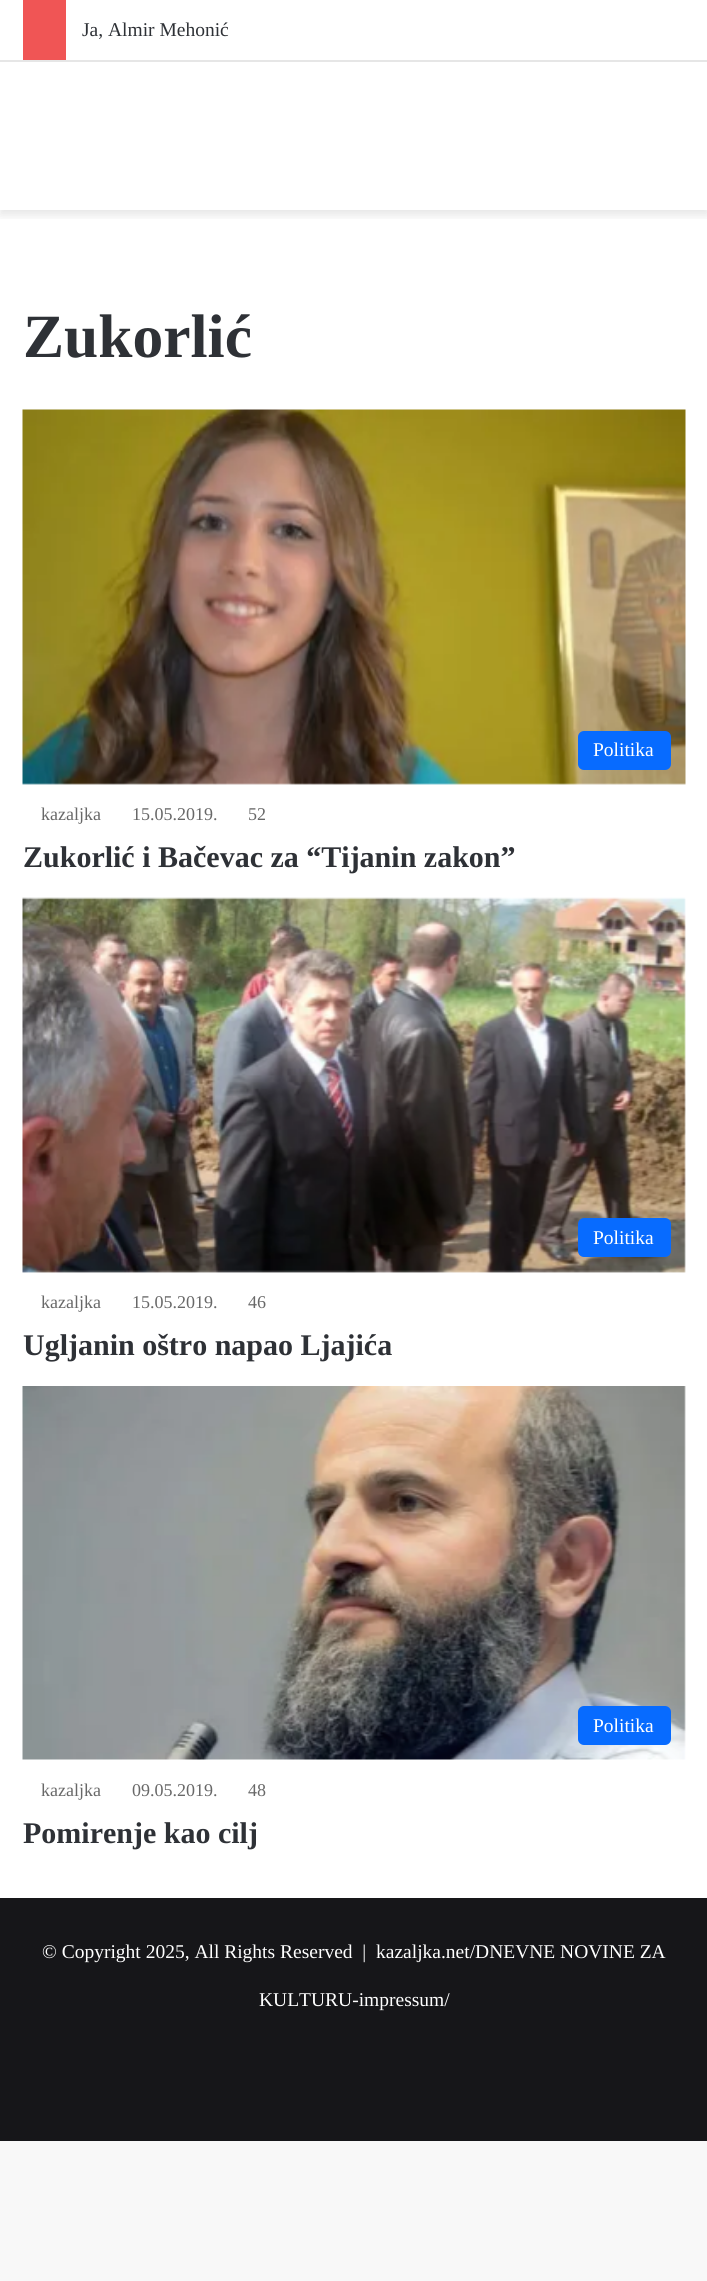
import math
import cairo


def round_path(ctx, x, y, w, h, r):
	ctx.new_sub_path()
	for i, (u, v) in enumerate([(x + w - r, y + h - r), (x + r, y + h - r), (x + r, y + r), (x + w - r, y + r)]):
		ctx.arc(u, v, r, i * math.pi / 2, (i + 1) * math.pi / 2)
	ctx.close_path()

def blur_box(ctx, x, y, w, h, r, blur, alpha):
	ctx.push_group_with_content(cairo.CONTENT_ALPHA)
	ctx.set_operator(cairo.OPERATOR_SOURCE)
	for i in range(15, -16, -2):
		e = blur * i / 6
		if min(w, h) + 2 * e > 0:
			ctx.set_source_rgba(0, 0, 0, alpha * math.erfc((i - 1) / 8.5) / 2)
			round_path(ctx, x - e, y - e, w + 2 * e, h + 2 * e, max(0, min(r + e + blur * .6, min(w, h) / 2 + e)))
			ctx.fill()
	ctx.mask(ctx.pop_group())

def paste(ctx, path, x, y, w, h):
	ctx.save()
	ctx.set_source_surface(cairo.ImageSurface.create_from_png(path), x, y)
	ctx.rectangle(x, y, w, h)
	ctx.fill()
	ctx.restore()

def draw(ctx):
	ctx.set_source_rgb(0.969, 0.969, 0.969)
	ctx.paint()
	ctx.set_source_rgb(1, 1, 1)
	ctx.rectangle(0, 62, 707, 1836)
	ctx.fill()
	ctx.save()
	ctx.rectangle(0, 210, 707, 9)
	ctx.clip()
	ctx.set_source_rgb(0, 0, 0)
	blur_box(ctx, 0, 66, 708, 149, 0, 5, 0.1)
	ctx.restore()
	ctx.rectangle(0, 0, 707, 60)
	ctx.fill()
	ctx.set_source_rgb(0.902, 0.902, 0.902)
	ctx.rectangle(0, 60, 707, 2)
	ctx.fill()
	ctx.set_source_rgb(0.941, 0.333, 0.333)
	ctx.rectangle(23, 0, 43, 60)
	ctx.fill()
	ctx.select_font_face('Liberation Serif')
	ctx.set_font_size(19.5)
	ctx.set_source_rgb(0.18, 0.192, 0.212)
	ctx.move_to(82, 36)
	ctx.show_text('Ja, Almir Mehonić')
	ctx.select_font_face('Liberation Serif', cairo.FONT_SLANT_NORMAL, cairo.FONT_WEIGHT_BOLD)
	ctx.set_font_size(61.5)
	ctx.move_to(23, 357)
	ctx.show_text('Zukorlić')
	paste(ctx, 'media/1.png', 22, 409, 664, 376)
	ctx.set_source_rgb(0.031, 0.42, 1)
	round_path(ctx, 578, 731, 93, 39, 6)
	ctx.fill()
	ctx.select_font_face('Liberation Serif')
	ctx.set_font_size(19.5)
	ctx.set_source_rgb(1, 1, 1)
	ctx.move_to(593, 756)
	ctx.show_text('Politika')
	ctx.set_font_size(18)
	ctx.set_source_rgb(0.408, 0.408, 0.408)
	for x, y, s in [
		(41, 820, 'kazaljka'),
		(132, 820, '15.05.2019.'),
		(248, 820, '52'),
	]:
		ctx.move_to(x, y)
		ctx.show_text(s)
	ctx.select_font_face('Liberation Serif', cairo.FONT_SLANT_NORMAL, cairo.FONT_WEIGHT_BOLD)
	ctx.set_font_size(30)
	ctx.set_source_rgb(0.18, 0.192, 0.212)
	ctx.move_to(23, 867)
	ctx.show_text('Zukorlić i Bačevac za “Tijanin zakon”')
	paste(ctx, 'media/2.png', 22, 897, 664, 376)
	ctx.set_source_rgb(0.031, 0.42, 1)
	round_path(ctx, 578, 1218, 93, 39, 6)
	ctx.fill()
	ctx.select_font_face('Liberation Serif')
	ctx.set_font_size(19.5)
	ctx.set_source_rgb(1, 1, 1)
	ctx.move_to(593, 1244)
	ctx.show_text('Politika')
	ctx.set_font_size(18)
	ctx.set_source_rgb(0.408, 0.408, 0.408)
	for x, y, s in [
		(41, 1308, 'kazaljka'),
		(132, 1308, '15.05.2019.'),
		(248, 1308, '46'),
	]:
		ctx.move_to(x, y)
		ctx.show_text(s)
	ctx.select_font_face('Liberation Serif', cairo.FONT_SLANT_NORMAL, cairo.FONT_WEIGHT_BOLD)
	ctx.set_font_size(30)
	ctx.set_source_rgb(0.18, 0.192, 0.212)
	ctx.move_to(23, 1355)
	ctx.show_text('Ugljanin oštro napao Ljajića')
	paste(ctx, 'media/3.png', 22, 1386, 664, 374)
	ctx.set_source_rgb(0.031, 0.42, 1)
	round_path(ctx, 578, 1706, 93, 39, 6)
	ctx.fill()
	ctx.select_font_face('Liberation Serif')
	ctx.set_font_size(19.5)
	ctx.set_source_rgb(1, 1, 1)
	ctx.move_to(593, 1732)
	ctx.show_text('Politika')
	ctx.set_font_size(18)
	ctx.set_source_rgb(0.408, 0.408, 0.408)
	for x, y, s in [
		(41, 1796, 'kazaljka'),
		(132, 1796, '09.05.2019.'),
		(248, 1796, '48'),
	]:
		ctx.move_to(x, y)
		ctx.show_text(s)
	ctx.select_font_face('Liberation Serif', cairo.FONT_SLANT_NORMAL, cairo.FONT_WEIGHT_BOLD)
	ctx.set_font_size(30)
	ctx.set_source_rgb(0.18, 0.192, 0.212)
	ctx.move_to(23, 1843)
	ctx.show_text('Pomirenje kao cilj')
	ctx.set_source_rgb(0.086, 0.086, 0.098)
	ctx.rectangle(0, 1898, 707, 243)
	ctx.fill()
	ctx.select_font_face('Liberation Serif')
	ctx.set_font_size(19.5)
	ctx.set_source_rgb(1, 1, 1)
	for x, y, s in [
		(42, 1958, '© Copyright 2025, All Rights Reserved  |'),
		(376, 1958, 'kazaljka.net/DNEVNE NOVINE ZA'),
		(259, 2006, 'KULTURU-impressum/'),
	]:
		ctx.move_to(x, y)
		ctx.show_text(s)


surface = cairo.ImageSurface(cairo.FORMAT_RGB24, 707, 2281)
ctx = cairo.Context(surface)
options = cairo.FontOptions()
options.set_hint_metrics(cairo.HINT_METRICS_OFF)
options.set_hint_style(cairo.HINT_STYLE_NONE)
ctx.set_font_options(options)
ctx.set_miter_limit(4)
draw(ctx)
surface.write_to_png('image.png')
